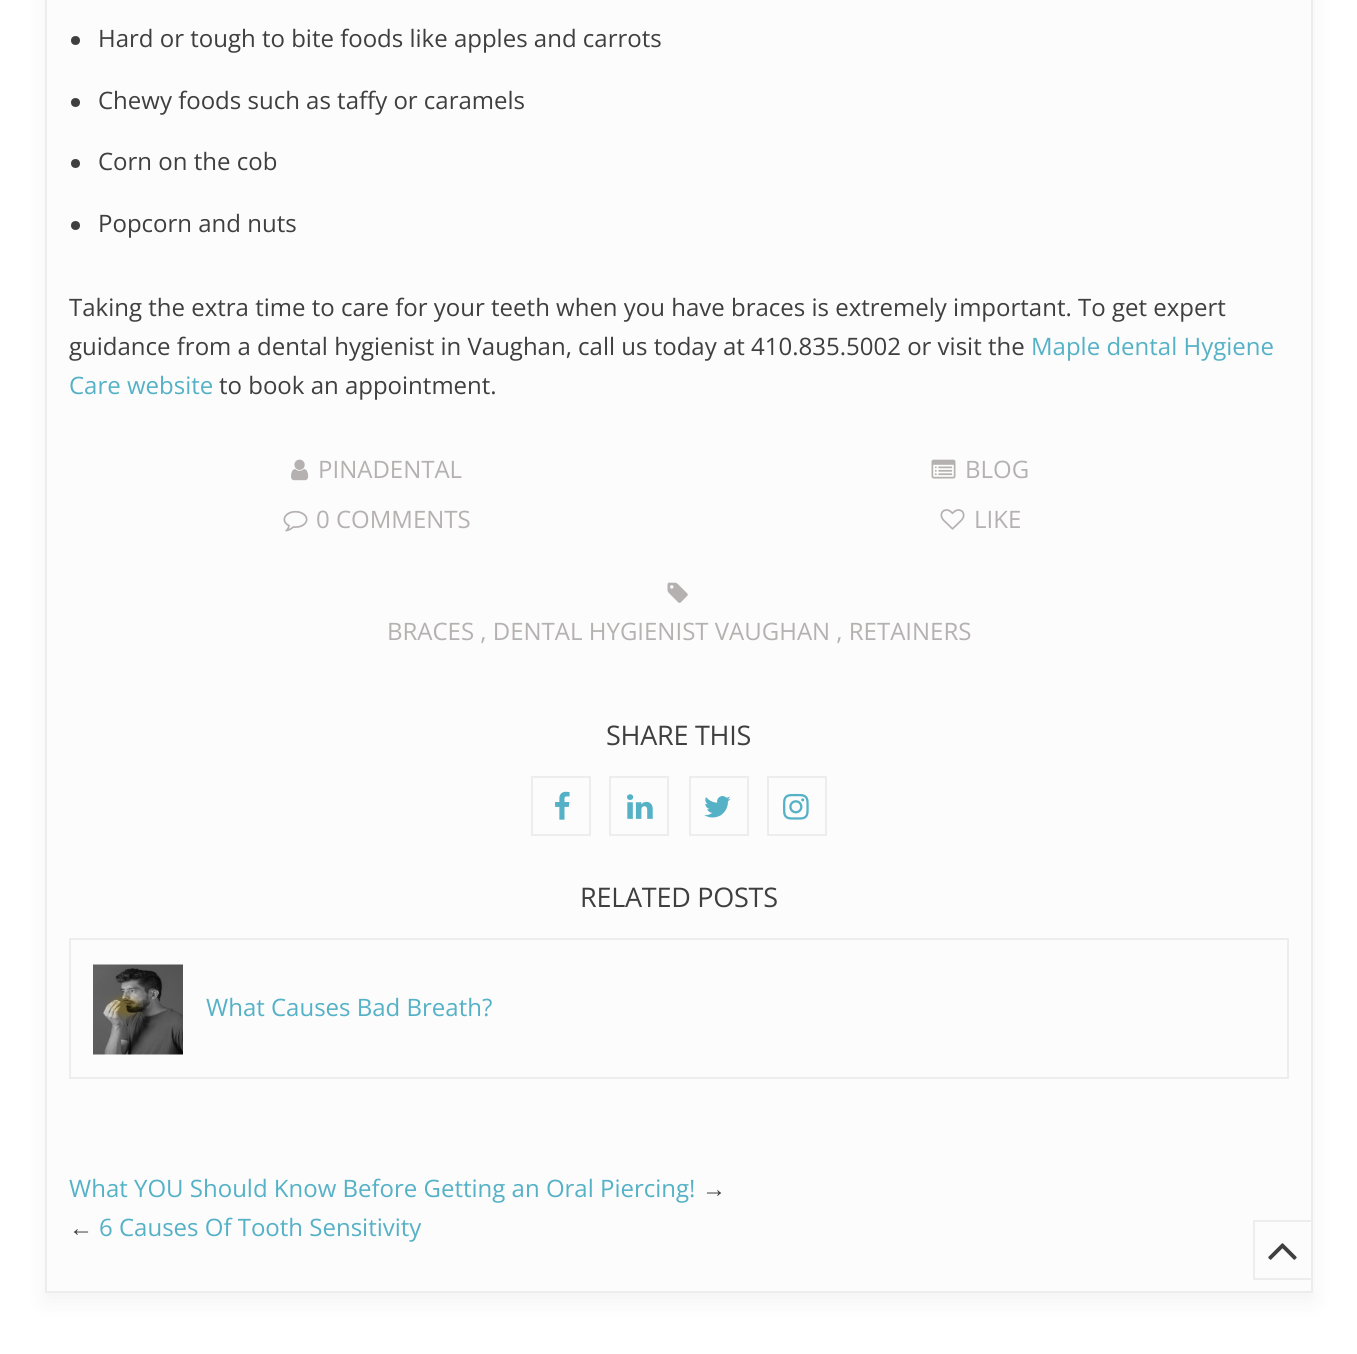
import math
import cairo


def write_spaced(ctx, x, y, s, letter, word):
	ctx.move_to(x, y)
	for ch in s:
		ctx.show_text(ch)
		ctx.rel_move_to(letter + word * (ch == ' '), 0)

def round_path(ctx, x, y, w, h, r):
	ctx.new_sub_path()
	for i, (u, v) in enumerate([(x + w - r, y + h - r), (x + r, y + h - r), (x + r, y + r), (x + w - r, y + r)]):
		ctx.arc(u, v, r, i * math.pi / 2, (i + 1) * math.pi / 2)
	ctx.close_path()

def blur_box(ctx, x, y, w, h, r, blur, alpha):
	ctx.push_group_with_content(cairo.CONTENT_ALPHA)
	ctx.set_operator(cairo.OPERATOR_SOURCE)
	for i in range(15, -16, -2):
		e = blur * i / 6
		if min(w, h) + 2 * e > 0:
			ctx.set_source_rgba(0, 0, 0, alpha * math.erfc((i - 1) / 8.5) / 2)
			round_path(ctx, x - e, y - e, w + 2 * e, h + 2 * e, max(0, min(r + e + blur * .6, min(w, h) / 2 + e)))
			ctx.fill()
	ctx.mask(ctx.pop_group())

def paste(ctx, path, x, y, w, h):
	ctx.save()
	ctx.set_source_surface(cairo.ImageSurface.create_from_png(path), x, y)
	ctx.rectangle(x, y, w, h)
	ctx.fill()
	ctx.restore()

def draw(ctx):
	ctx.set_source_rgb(1, 1, 1)
	ctx.paint()
	ctx.set_source_rgb(0, 0, 0)
	blur_box(ctx, 45, -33, 1268, 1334, 0, 11, 0.05)
	ctx.set_source_rgb(0.988, 0.988, 0.988)
	ctx.rectangle(46, -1, 1266, 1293)
	ctx.fill_preserve()
	ctx.set_source_rgb(0.929, 0.929, 0.929)
	ctx.stroke()
	ctx.set_source_rgb(0.247, 0.247, 0.247)
	ctx.arc(75.5, 40.5, 4.5, 0, 2 * math.pi)
	ctx.fill()
	ctx.select_font_face('Open Sans')
	ctx.set_font_size(24)
	ctx.move_to(98, 47)
	ctx.show_text('Hard or tough to bite foods like apples and carrots')
	ctx.new_path()
	ctx.arc(75.5, 102.5, 4.5, 0, 2 * math.pi)
	ctx.fill()
	ctx.move_to(98, 109)
	ctx.show_text('Chewy foods such as taffy or caramels')
	ctx.new_path()
	ctx.arc(75.5, 163.5, 4.5, 0, 2 * math.pi)
	ctx.fill()
	ctx.move_to(98, 170)
	ctx.show_text('Corn on the cob')
	ctx.new_path()
	ctx.arc(75.5, 225.5, 4.5, 0, 2 * math.pi)
	ctx.fill()
	for x, y, s in [
		(98, 232, 'Popcorn and nuts'),
		(69, 316, 'Taking the extra time to care for your teeth when you have braces is extremely important. To get expert'),
		(69, 355, 'guidance from a dental hygienist in Vaughan, call us today at 410.835.5002 or visit the'),
	]:
		ctx.move_to(x, y)
		ctx.show_text(s)
	ctx.set_source_rgb(0.333, 0.694, 0.776)
	ctx.move_to(1031, 355)
	ctx.show_text('Maple dental Hygiene')
	ctx.move_to(69, 394)
	ctx.show_text('Care website')
	ctx.set_source_rgb(0.247, 0.247, 0.247)
	ctx.move_to(219, 394)
	ctx.show_text('to book an appointment.')
	paste(ctx, 'media/1.png', 291, 459, 18, 22)
	ctx.set_source_rgb(0.71, 0.694, 0.694)
	ctx.move_to(318, 478)
	ctx.show_text('PINADENTAL')
	paste(ctx, 'media/2.png', 931, 459, 25, 20)
	ctx.move_to(965, 478)
	ctx.show_text('BLOG')
	paste(ctx, 'media/3.png', 283, 510, 25, 22)
	ctx.move_to(316, 528)
	ctx.show_text('0 COMMENTS')
	paste(ctx, 'media/4.png', 940, 509, 25, 21)
	ctx.move_to(974, 528)
	ctx.show_text('LIKE')
	paste(ctx, 'media/5.png', 667, 582, 21, 21)
	ctx.move_to(387, 640)
	ctx.show_text('BRACES , DENTAL HYGIENIST VAUGHAN , RETAINERS')
	ctx.set_font_size(27)
	ctx.set_source_rgb(0.247, 0.247, 0.247)
	write_spaced(ctx, 606, 745, 'SHARE THIS', -0.25, 0)
	ctx.rectangle(532, 777, 58, 58)
	ctx.set_source_rgb(0.929, 0.929, 0.929)
	ctx.stroke()
	paste(ctx, 'media/6.png', 555, 791, 15, 29)
	ctx.rectangle(610, 777, 58, 58)
	ctx.stroke()
	paste(ctx, 'media/7.png', 627, 794, 26, 25)
	ctx.rectangle(690, 777, 58, 58)
	ctx.stroke()
	paste(ctx, 'media/8.png', 704, 796, 27, 22)
	ctx.rectangle(768, 777, 58, 58)
	ctx.stroke()
	paste(ctx, 'media/9.png', 783, 793, 26, 27)
	ctx.set_source_rgb(0.247, 0.247, 0.247)
	write_spaced(ctx, 580, 907, 'RELATED POSTS', -0.25, 0)
	ctx.rectangle(70, 939, 1218, 139)
	ctx.set_source_rgb(0.929, 0.929, 0.929)
	ctx.stroke()
	paste(ctx, 'media/10.png', 93, 964, 90, 91)
	ctx.set_font_size(24)
	ctx.set_source_rgb(0.333, 0.694, 0.776)
	ctx.move_to(206, 1016)
	ctx.show_text('What Causes Bad Breath?')
	ctx.move_to(69, 1197)
	ctx.show_text('What YOU Should Know Before Getting an Oral Piercing!')
	ctx.select_font_face('Liberation Serif')
	ctx.set_source_rgb(0.247, 0.247, 0.247)
	ctx.move_to(702, 1197)
	ctx.show_text('→')
	ctx.move_to(69, 1236)
	ctx.show_text('←')
	ctx.select_font_face('Open Sans')
	ctx.set_source_rgb(0.333, 0.694, 0.776)
	ctx.move_to(99, 1236)
	ctx.show_text('6 Causes Of Tooth Sensitivity')
	ctx.rectangle(1254, 1221, 58, 58)
	ctx.set_source_rgb(0.929, 0.929, 0.929)
	ctx.stroke()
	paste(ctx, 'media/11.png', 1268, 1243, 29, 17)


surface = cairo.ImageSurface(cairo.FORMAT_RGB24, 1357, 1354)
ctx = cairo.Context(surface)
options = cairo.FontOptions()
options.set_hint_metrics(cairo.HINT_METRICS_OFF)
options.set_hint_style(cairo.HINT_STYLE_NONE)
ctx.set_font_options(options)
ctx.set_miter_limit(4)
draw(ctx)
surface.write_to_png('image.png')
